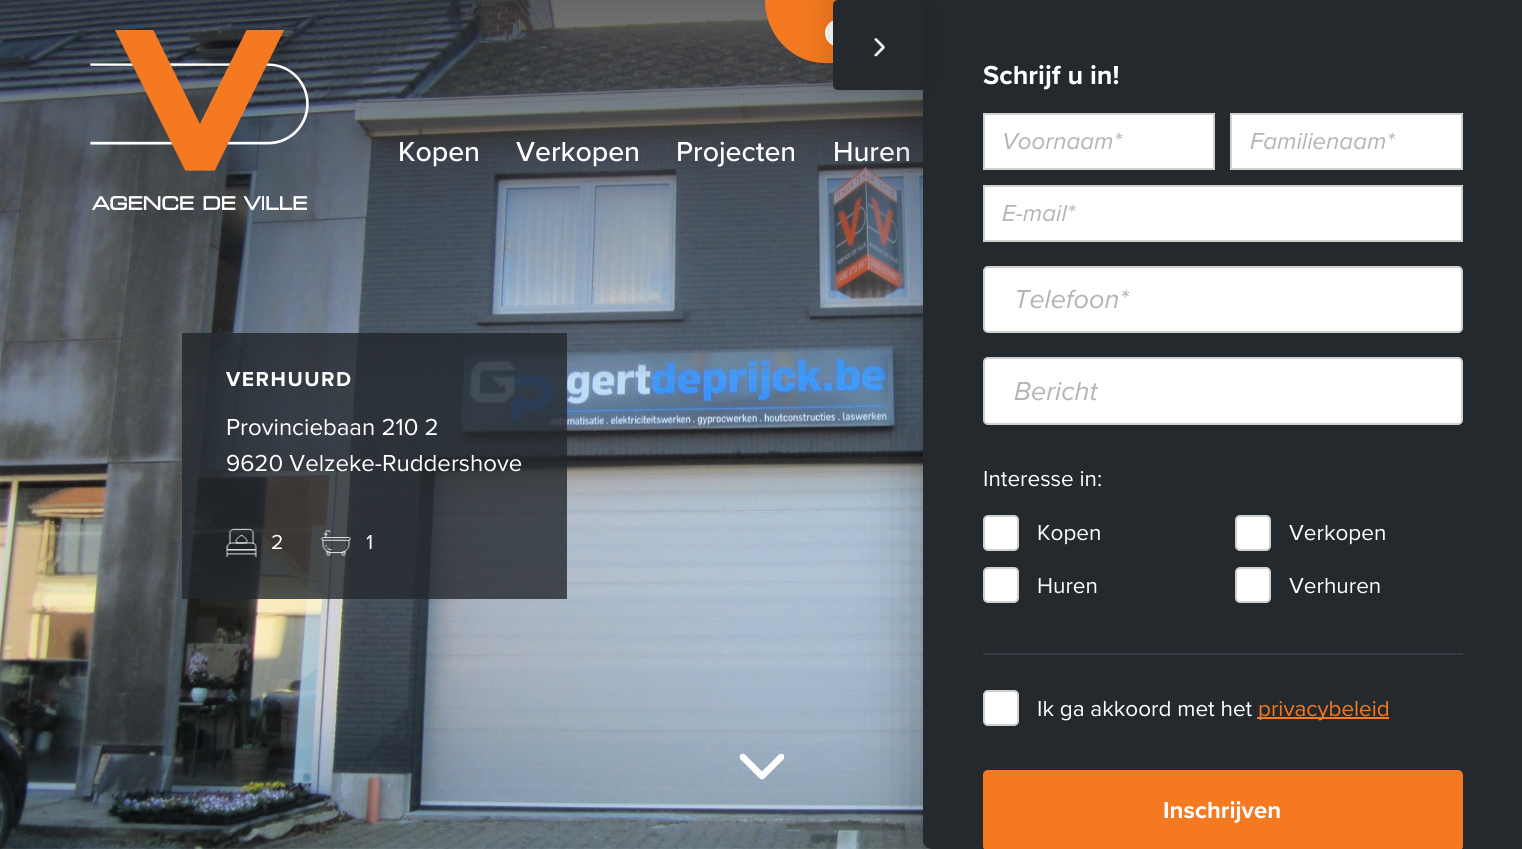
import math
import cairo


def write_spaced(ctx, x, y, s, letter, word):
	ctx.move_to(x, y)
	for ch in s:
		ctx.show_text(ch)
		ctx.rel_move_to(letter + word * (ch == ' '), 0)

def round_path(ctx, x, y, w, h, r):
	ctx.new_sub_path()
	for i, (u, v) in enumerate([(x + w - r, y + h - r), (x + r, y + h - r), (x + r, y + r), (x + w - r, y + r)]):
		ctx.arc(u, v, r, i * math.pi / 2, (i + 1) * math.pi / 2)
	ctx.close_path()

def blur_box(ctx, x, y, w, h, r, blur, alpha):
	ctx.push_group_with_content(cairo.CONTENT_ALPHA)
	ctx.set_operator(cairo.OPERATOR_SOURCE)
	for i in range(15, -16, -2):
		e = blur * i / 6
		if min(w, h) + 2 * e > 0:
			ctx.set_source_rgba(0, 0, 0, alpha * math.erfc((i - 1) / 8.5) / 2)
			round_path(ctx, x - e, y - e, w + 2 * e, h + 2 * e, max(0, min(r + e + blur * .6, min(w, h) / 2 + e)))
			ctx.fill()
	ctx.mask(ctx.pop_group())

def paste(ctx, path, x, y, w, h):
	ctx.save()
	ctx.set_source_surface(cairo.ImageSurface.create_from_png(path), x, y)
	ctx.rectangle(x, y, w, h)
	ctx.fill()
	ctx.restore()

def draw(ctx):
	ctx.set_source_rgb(1, 1, 1)
	ctx.paint()
	paste(ctx, 'media/4.png', 0, 0, 932, 849)
	ctx.set_source_rgba(0.141, 0.161, 0.18, 0.8)
	ctx.rectangle(182, 333, 385, 266)
	ctx.fill()
	ctx.select_font_face('Proxima Nova', cairo.FONT_SLANT_NORMAL, cairo.FONT_WEIGHT_BOLD)
	ctx.set_font_size(21)
	ctx.set_source_rgb(1, 1, 1)
	write_spaced(ctx, 226, 386, 'VERHUURD', 1.5, 0)
	gradient = cairo.LinearGradient(761, 0, 761, 390)
	gradient.add_color_stop_rgba(0, 0, 0, 0, 0.6)
	gradient.add_color_stop_rgba(1, 0, 0, 0, 0)
	ctx.set_source(gradient)
	ctx.rectangle(0, 0, 923, 376)
	ctx.fill()
	paste(ctx, 'media/1.png', 90, 30, 219, 180)
	ctx.set_source_rgb(0.957, 0.475, 0.125)
	ctx.rectangle(825, 0, 13, 63)
	ctx.fill()
	ctx.new_path()
	ctx.move_to(765, 0)
	ctx.line_to(825, 0)
	ctx.line_to(825, 63)
	ctx.curve_to(792, 63, 765, 35, 765, 0)
	ctx.close_path()
	ctx.fill()
	paste(ctx, 'media/2.png', 825, 20, 8, 26)
	ctx.select_font_face('Proxima Nova Medium')
	ctx.set_font_size(28.5)
	ctx.set_source_rgb(1, 1, 1)
	for x, y, s in [
		(398, 161, 'Kopen'),
		(516, 161, 'Verkopen'),
		(676, 161, 'Projecten'),
		(833, 161, 'Huren'),
	]:
		ctx.move_to(x, y)
		ctx.show_text(s)
	ctx.set_source_rgb(0, 0, 0)
	blur_box(ctx, 915, 0, 600, 849, 9, 30, 0.25)
	ctx.set_source_rgb(0.141, 0.161, 0.18)
	ctx.new_path()
	ctx.move_to(923, 0)
	ctx.line_to(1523, 0)
	ctx.line_to(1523, 849)
	ctx.line_to(932, 849)
	ctx.curve_to(927, 849, 923, 845, 923, 840)
	ctx.close_path()
	ctx.fill()
	ctx.set_source_rgb(0, 0, 0)
	blur_box(ctx, 830, 0, 90, 90, 5, 15, 0.15)
	ctx.set_source_rgb(0.141, 0.161, 0.18)
	ctx.new_path()
	ctx.move_to(838, 0)
	ctx.line_to(923, 0)
	ctx.line_to(923, 90)
	ctx.line_to(838, 90)
	ctx.curve_to(835, 90, 833, 88, 833, 85)
	ctx.line_to(833, 5)
	ctx.curve_to(833, 2, 835, 0, 838, 0)
	ctx.close_path()
	ctx.fill()
	paste(ctx, 'media/3.png', 874, 38, 12, 19)
	ctx.select_font_face('Proxima Nova', cairo.FONT_SLANT_NORMAL, cairo.FONT_WEIGHT_BOLD)
	ctx.set_font_size(27)
	ctx.set_source_rgb(1, 1, 1)
	ctx.move_to(983, 84)
	ctx.show_text('Schrijf u in!')
	ctx.rectangle(984, 114, 230, 55)
	ctx.fill_preserve()
	ctx.set_source_rgb(0.816, 0.816, 0.808)
	ctx.stroke()
	ctx.select_font_face('Proxima Nova', cairo.FONT_SLANT_ITALIC)
	ctx.set_font_size(24)
	ctx.set_source_rgb(0.706, 0.706, 0.706)
	ctx.move_to(1002, 149)
	ctx.show_text('Voornaam*')
	ctx.set_source_rgb(1, 1, 1)
	ctx.rectangle(1231, 114, 231, 55)
	ctx.fill_preserve()
	ctx.set_source_rgb(0.816, 0.816, 0.808)
	ctx.stroke()
	ctx.set_source_rgb(0.706, 0.706, 0.706)
	ctx.move_to(1250, 149)
	ctx.show_text('Familienaam*')
	ctx.set_source_rgb(1, 1, 1)
	ctx.rectangle(984, 186, 478, 55)
	ctx.fill_preserve()
	ctx.set_source_rgb(0.816, 0.816, 0.808)
	ctx.stroke()
	ctx.set_source_rgb(0.706, 0.706, 0.706)
	ctx.move_to(1002, 221)
	ctx.show_text('E-mail*')
	ctx.set_source_rgb(1, 1, 1)
	round_path(ctx, 984, 267, 478, 65, 4)
	ctx.fill_preserve()
	ctx.set_source_rgb(0.816, 0.816, 0.808)
	ctx.stroke()
	ctx.set_font_size(27)
	ctx.set_source_rgb(0.706, 0.706, 0.706)
	ctx.move_to(1014, 308)
	ctx.show_text('Telefoon*')
	ctx.set_source_rgb(1, 1, 1)
	round_path(ctx, 984, 358, 478, 66, 4)
	ctx.fill_preserve()
	ctx.set_source_rgb(0.816, 0.816, 0.808)
	ctx.stroke()
	ctx.set_source_rgb(0.706, 0.706, 0.706)
	ctx.move_to(1014, 400)
	ctx.show_text('Bericht')
	ctx.select_font_face('Proxima Nova')
	ctx.set_font_size(22.5)
	ctx.set_source_rgb(1, 1, 1)
	ctx.move_to(983, 486)
	ctx.show_text('Interesse in:')
	round_path(ctx, 984, 516, 34, 34, 4)
	ctx.fill_preserve()
	ctx.set_source_rgb(0.816, 0.816, 0.808)
	ctx.stroke()
	ctx.set_source_rgb(1, 1, 1)
	ctx.move_to(1037, 540)
	ctx.show_text('Kopen')
	round_path(ctx, 1236, 516, 34, 34, 4)
	ctx.fill_preserve()
	ctx.set_source_rgb(0.816, 0.816, 0.808)
	ctx.stroke()
	ctx.set_source_rgb(1, 1, 1)
	ctx.move_to(1289, 540)
	ctx.show_text('Verkopen')
	round_path(ctx, 984, 568, 34, 34, 4)
	ctx.fill_preserve()
	ctx.set_source_rgb(0.816, 0.816, 0.808)
	ctx.stroke()
	ctx.set_source_rgb(1, 1, 1)
	ctx.move_to(1037, 593)
	ctx.show_text('Huren')
	round_path(ctx, 1236, 568, 34, 34, 4)
	ctx.fill_preserve()
	ctx.set_source_rgb(0.816, 0.816, 0.808)
	ctx.stroke()
	ctx.set_source_rgb(1, 1, 1)
	ctx.move_to(1289, 593)
	ctx.show_text('Verhuren')
	ctx.set_source_rgb(0.204, 0.227, 0.259)
	ctx.rectangle(983, 653, 480, 2)
	ctx.fill()
	ctx.set_source_rgb(1, 1, 1)
	round_path(ctx, 984, 691, 34, 34, 4)
	ctx.fill_preserve()
	ctx.set_source_rgb(0.816, 0.816, 0.808)
	ctx.stroke()
	ctx.set_source_rgb(1, 1, 1)
	ctx.move_to(1037, 716)
	ctx.show_text('Ik ga akkoord met het')
	ctx.set_source_rgb(0.957, 0.475, 0.125)
	ctx.rectangle(1257, 717, 132, 2)
	ctx.fill()
	ctx.move_to(1258, 716)
	ctx.show_text('privacybeleid')
	round_path(ctx, 984, 771, 478, 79, 4)
	ctx.fill_preserve()
	ctx.stroke()
	ctx.select_font_face('Proxima Nova', cairo.FONT_SLANT_NORMAL, cairo.FONT_WEIGHT_BOLD)
	ctx.set_font_size(24)
	ctx.set_source_rgb(1, 1, 1)
	ctx.move_to(1163, 818)
	ctx.show_text('Inschrijven')
	ctx.select_font_face('Proxima Nova')
	ctx.move_to(226, 435)
	ctx.show_text('Provinciebaan 210 2')
	ctx.move_to(226, 471)
	ctx.show_text('9620 Velzeke-Ruddershove')
	paste(ctx, 'media/5.png', 226, 528, 31, 29)
	ctx.set_font_size(21)
	ctx.move_to(271, 549)
	ctx.show_text('2')
	paste(ctx, 'media/6.png', 320, 530, 31, 26)
	ctx.move_to(366, 549)
	ctx.show_text('1')
	paste(ctx, 'media/7.png', 739, 753, 46, 27)


surface = cairo.ImageSurface(cairo.FORMAT_RGB24, 1522, 849)
ctx = cairo.Context(surface)
options = cairo.FontOptions()
options.set_hint_metrics(cairo.HINT_METRICS_OFF)
options.set_hint_style(cairo.HINT_STYLE_NONE)
ctx.set_font_options(options)
ctx.set_miter_limit(4)
draw(ctx)
surface.write_to_png('image.png')
